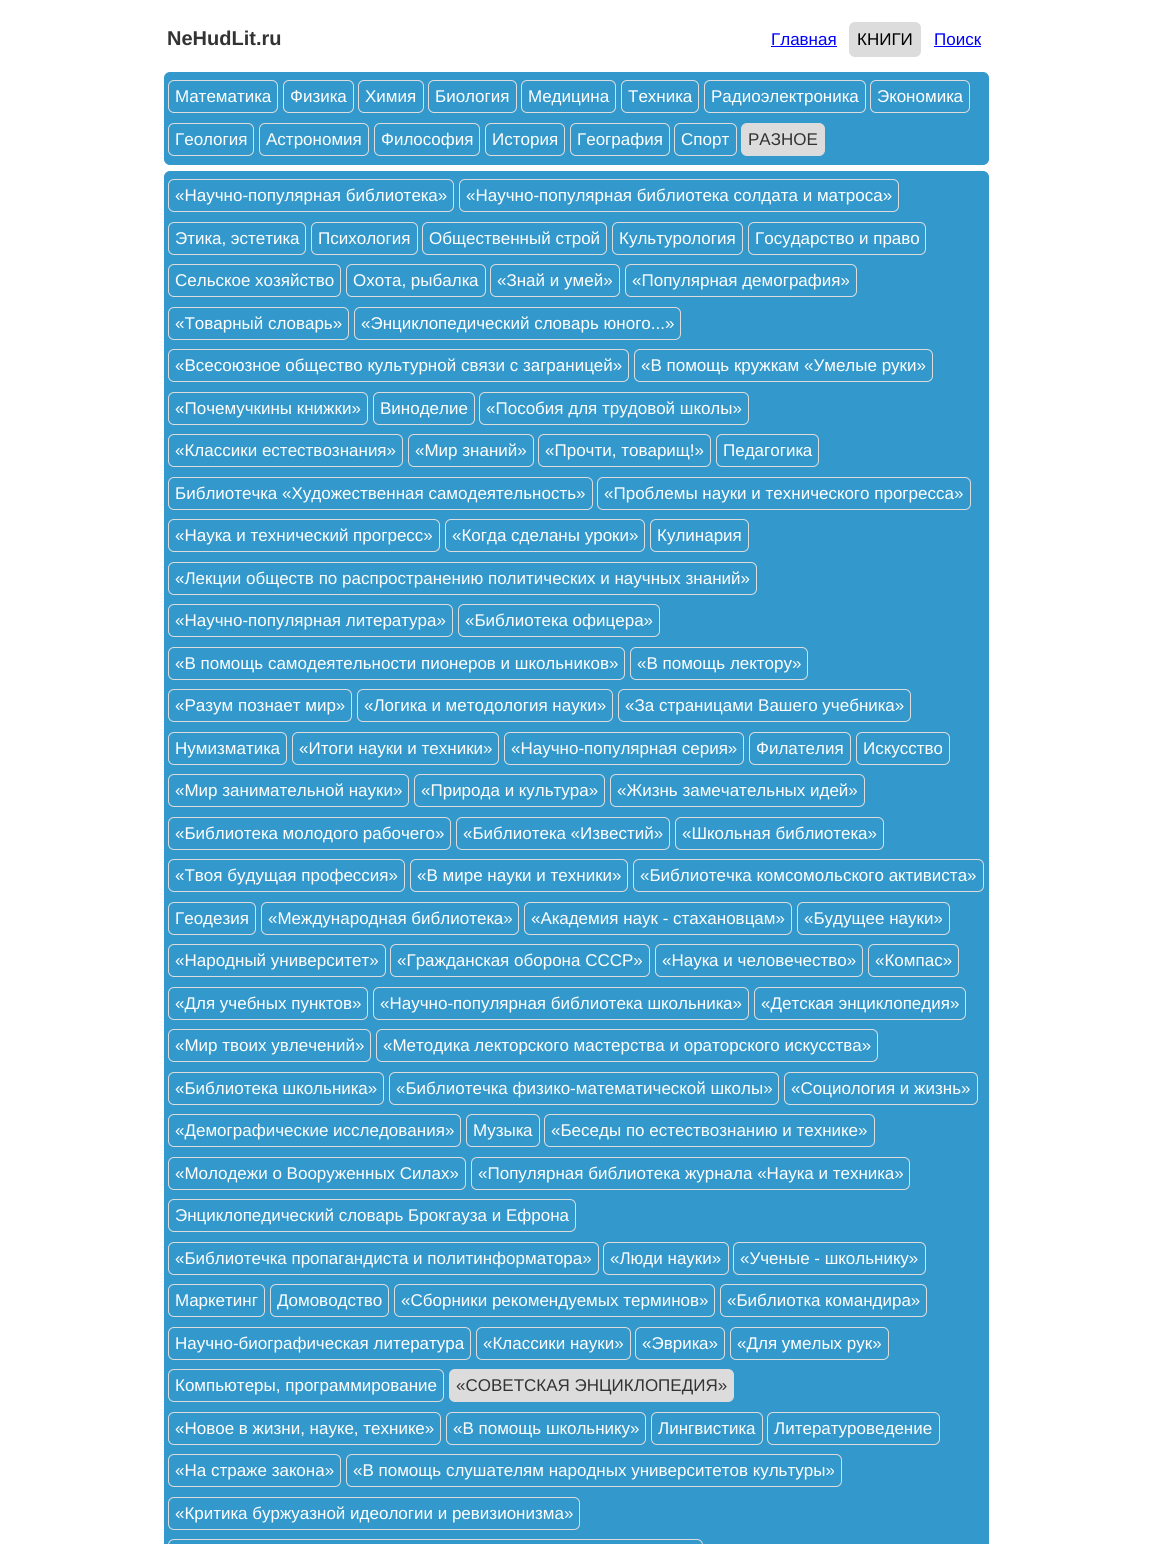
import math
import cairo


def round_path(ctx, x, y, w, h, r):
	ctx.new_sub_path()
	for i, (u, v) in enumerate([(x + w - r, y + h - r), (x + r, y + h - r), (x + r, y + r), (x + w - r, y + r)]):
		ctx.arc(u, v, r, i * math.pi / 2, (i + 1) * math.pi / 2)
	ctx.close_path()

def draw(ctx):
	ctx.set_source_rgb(1, 1, 1)
	ctx.paint()
	ctx.select_font_face('Liberation Sans', cairo.FONT_SLANT_NORMAL, cairo.FONT_WEIGHT_BOLD)
	ctx.set_font_size(20)
	ctx.set_source_rgb(0.2, 0.2, 0.2)
	ctx.move_to(167, 45)
	ctx.show_text('NeHudLit.ru')
	ctx.select_font_face('Liberation Sans')
	ctx.set_font_size(17)
	ctx.set_source_rgb(0, 0, 1)
	ctx.move_to(771, 45)
	ctx.show_text('Главная')
	ctx.rectangle(771, 46, 66, 1)
	ctx.fill()
	ctx.set_source_rgb(0.863, 0.863, 0.863)
	round_path(ctx, 849, 22, 72, 35, 6)
	ctx.fill()
	ctx.set_source_rgb(0, 0, 0)
	ctx.move_to(857, 45)
	ctx.show_text('КНИГИ')
	ctx.set_source_rgb(0, 0, 1)
	ctx.move_to(934, 45)
	ctx.show_text('Поиск')
	ctx.rectangle(934, 46, 47, 1)
	ctx.fill()
	ctx.set_source_rgb(0.2, 0.6, 0.8)
	round_path(ctx, 164.5, 72.5, 824, 92, 5.5)
	ctx.fill_preserve()
	ctx.set_line_width(1)
	ctx.stroke()
	round_path(ctx, 168.5, 80.5, 109, 32, 5.5)
	ctx.set_source_rgb(0.863, 0.863, 0.863)
	ctx.stroke()
	ctx.set_source_rgb(1, 1, 1)
	ctx.move_to(175, 102)
	ctx.show_text('Математика')
	round_path(ctx, 283.5, 80.5, 70, 32, 5.5)
	ctx.set_source_rgb(0.863, 0.863, 0.863)
	ctx.stroke()
	ctx.set_source_rgb(1, 1, 1)
	ctx.move_to(290, 102)
	ctx.show_text('Физика')
	round_path(ctx, 358.5, 80.5, 65, 32, 5.5)
	ctx.set_source_rgb(0.863, 0.863, 0.863)
	ctx.stroke()
	ctx.set_source_rgb(1, 1, 1)
	ctx.move_to(365, 102)
	ctx.show_text('Химия')
	round_path(ctx, 428.5, 80.5, 88, 32, 5.5)
	ctx.set_source_rgb(0.863, 0.863, 0.863)
	ctx.stroke()
	ctx.set_source_rgb(1, 1, 1)
	ctx.move_to(435, 102)
	ctx.show_text('Биология')
	round_path(ctx, 521.5, 80.5, 94, 32, 5.5)
	ctx.set_source_rgb(0.863, 0.863, 0.863)
	ctx.stroke()
	ctx.set_source_rgb(1, 1, 1)
	ctx.move_to(528, 102)
	ctx.show_text('Медицина')
	round_path(ctx, 621.5, 80.5, 77, 32, 5.5)
	ctx.set_source_rgb(0.863, 0.863, 0.863)
	ctx.stroke()
	ctx.set_source_rgb(1, 1, 1)
	ctx.move_to(628, 102)
	ctx.show_text('Техника')
	round_path(ctx, 704.5, 80.5, 161, 32, 5.5)
	ctx.set_source_rgb(0.863, 0.863, 0.863)
	ctx.stroke()
	ctx.set_source_rgb(1, 1, 1)
	ctx.move_to(711, 102)
	ctx.show_text('Радиоэлектроника')
	round_path(ctx, 870.5, 80.5, 99, 32, 5.5)
	ctx.set_source_rgb(0.863, 0.863, 0.863)
	ctx.stroke()
	ctx.set_source_rgb(1, 1, 1)
	ctx.move_to(877, 102)
	ctx.show_text('Экономика')
	round_path(ctx, 168.5, 123.5, 85, 32, 5.5)
	ctx.set_source_rgb(0.863, 0.863, 0.863)
	ctx.stroke()
	ctx.set_source_rgb(1, 1, 1)
	ctx.move_to(175, 145)
	ctx.show_text('Геология')
	round_path(ctx, 259.5, 123.5, 109, 32, 5.5)
	ctx.set_source_rgb(0.863, 0.863, 0.863)
	ctx.stroke()
	ctx.set_source_rgb(1, 1, 1)
	ctx.move_to(266, 145)
	ctx.show_text('Астрономия')
	round_path(ctx, 374.5, 123.5, 105, 32, 5.5)
	ctx.set_source_rgb(0.863, 0.863, 0.863)
	ctx.stroke()
	ctx.set_source_rgb(1, 1, 1)
	ctx.move_to(381, 145)
	ctx.show_text('Философия')
	round_path(ctx, 485.5, 123.5, 79, 32, 5.5)
	ctx.set_source_rgb(0.863, 0.863, 0.863)
	ctx.stroke()
	ctx.set_source_rgb(1, 1, 1)
	ctx.move_to(492, 145)
	ctx.show_text('История')
	round_path(ctx, 570.5, 123.5, 99, 32, 5.5)
	ctx.set_source_rgb(0.863, 0.863, 0.863)
	ctx.stroke()
	ctx.set_source_rgb(1, 1, 1)
	ctx.move_to(577, 145)
	ctx.show_text('География')
	round_path(ctx, 674.5, 123.5, 62, 32, 5.5)
	ctx.set_source_rgb(0.863, 0.863, 0.863)
	ctx.stroke()
	ctx.set_source_rgb(1, 1, 1)
	ctx.move_to(681, 145)
	ctx.show_text('Спорт')
	ctx.set_source_rgb(0.863, 0.863, 0.863)
	round_path(ctx, 741.5, 123.5, 83, 32, 5.5)
	ctx.fill_preserve()
	ctx.stroke()
	ctx.set_source_rgb(0.2, 0.2, 0.2)
	ctx.move_to(748, 145)
	ctx.show_text('РАЗНОЕ')
	ctx.set_source_rgb(0.2, 0.6, 0.8)
	round_path(ctx, 164.5, 171.5, 824, 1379, 5.5)
	ctx.fill_preserve()
	ctx.stroke()
	round_path(ctx, 168.5, 179.5, 285, 32, 5.5)
	ctx.set_source_rgb(0.863, 0.863, 0.863)
	ctx.stroke()
	ctx.set_source_rgb(1, 1, 1)
	ctx.move_to(175, 201)
	ctx.show_text('«Научно-популярная библиотека»')
	round_path(ctx, 459.5, 179.5, 439, 32, 5.5)
	ctx.set_source_rgb(0.863, 0.863, 0.863)
	ctx.stroke()
	ctx.set_source_rgb(1, 1, 1)
	ctx.move_to(466, 201)
	ctx.show_text('«Научно-популярная библиотека солдата и матроса»')
	round_path(ctx, 168.5, 222.5, 137, 32, 5.5)
	ctx.set_source_rgb(0.863, 0.863, 0.863)
	ctx.stroke()
	ctx.set_source_rgb(1, 1, 1)
	ctx.move_to(175, 244)
	ctx.show_text('Этика, эстетика')
	round_path(ctx, 311.5, 222.5, 106, 32, 5.5)
	ctx.set_source_rgb(0.863, 0.863, 0.863)
	ctx.stroke()
	ctx.set_source_rgb(1, 1, 1)
	ctx.move_to(318, 244)
	ctx.show_text('Психология')
	round_path(ctx, 422.5, 222.5, 184, 32, 5.5)
	ctx.set_source_rgb(0.863, 0.863, 0.863)
	ctx.stroke()
	ctx.set_source_rgb(1, 1, 1)
	ctx.move_to(429, 244)
	ctx.show_text('Общественный строй')
	round_path(ctx, 612.5, 222.5, 130, 32, 5.5)
	ctx.set_source_rgb(0.863, 0.863, 0.863)
	ctx.stroke()
	ctx.set_source_rgb(1, 1, 1)
	ctx.move_to(619, 244)
	ctx.show_text('Культурология')
	round_path(ctx, 748.5, 222.5, 177, 32, 5.5)
	ctx.set_source_rgb(0.863, 0.863, 0.863)
	ctx.stroke()
	ctx.set_source_rgb(1, 1, 1)
	ctx.move_to(755, 244)
	ctx.show_text('Государство и право')
	round_path(ctx, 168.5, 264.5, 172, 32, 5.5)
	ctx.set_source_rgb(0.863, 0.863, 0.863)
	ctx.stroke()
	ctx.set_source_rgb(1, 1, 1)
	ctx.move_to(175, 286)
	ctx.show_text('Сельское хозяйство')
	round_path(ctx, 346.5, 264.5, 139, 32, 5.5)
	ctx.set_source_rgb(0.863, 0.863, 0.863)
	ctx.stroke()
	ctx.set_source_rgb(1, 1, 1)
	ctx.move_to(353, 286)
	ctx.show_text('Охота, рыбалка')
	round_path(ctx, 490.5, 264.5, 129, 32, 5.5)
	ctx.set_source_rgb(0.863, 0.863, 0.863)
	ctx.stroke()
	ctx.set_source_rgb(1, 1, 1)
	ctx.move_to(497, 286)
	ctx.show_text('«Знай и умей»')
	round_path(ctx, 625.5, 264.5, 231, 32, 5.5)
	ctx.set_source_rgb(0.863, 0.863, 0.863)
	ctx.stroke()
	ctx.set_source_rgb(1, 1, 1)
	ctx.move_to(632, 286)
	ctx.show_text('«Популярная демография»')
	round_path(ctx, 168.5, 307.5, 180, 32, 5.5)
	ctx.set_source_rgb(0.863, 0.863, 0.863)
	ctx.stroke()
	ctx.set_source_rgb(1, 1, 1)
	ctx.move_to(175, 329)
	ctx.show_text('«Товарный словарь»')
	round_path(ctx, 354.5, 307.5, 326, 32, 5.5)
	ctx.set_source_rgb(0.863, 0.863, 0.863)
	ctx.stroke()
	ctx.set_source_rgb(1, 1, 1)
	ctx.move_to(361, 329)
	ctx.show_text('«Энциклопедический словарь юного...»')
	round_path(ctx, 168.5, 349.5, 460, 32, 5.5)
	ctx.set_source_rgb(0.863, 0.863, 0.863)
	ctx.stroke()
	ctx.set_source_rgb(1, 1, 1)
	ctx.move_to(175, 371)
	ctx.show_text('«Всесоюзное общество культурной связи с заграницей»')
	round_path(ctx, 634.5, 349.5, 298, 32, 5.5)
	ctx.set_source_rgb(0.863, 0.863, 0.863)
	ctx.stroke()
	ctx.set_source_rgb(1, 1, 1)
	ctx.move_to(641, 371)
	ctx.show_text('«В помощь кружкам «Умелые руки»')
	round_path(ctx, 168.5, 392.5, 199, 32, 5.5)
	ctx.set_source_rgb(0.863, 0.863, 0.863)
	ctx.stroke()
	ctx.set_source_rgb(1, 1, 1)
	ctx.move_to(175, 414)
	ctx.show_text('«Почемучкины книжки»')
	round_path(ctx, 373.5, 392.5, 101, 32, 5.5)
	ctx.set_source_rgb(0.863, 0.863, 0.863)
	ctx.stroke()
	ctx.set_source_rgb(1, 1, 1)
	ctx.move_to(380, 414)
	ctx.show_text('Виноделие')
	round_path(ctx, 479.5, 392.5, 269, 32, 5.5)
	ctx.set_source_rgb(0.863, 0.863, 0.863)
	ctx.stroke()
	ctx.set_source_rgb(1, 1, 1)
	ctx.move_to(486, 414)
	ctx.show_text('«Пособия для трудовой школы»')
	round_path(ctx, 168.5, 434.5, 234, 32, 5.5)
	ctx.set_source_rgb(0.863, 0.863, 0.863)
	ctx.stroke()
	ctx.set_source_rgb(1, 1, 1)
	ctx.move_to(175, 456)
	ctx.show_text('«Классики естествознания»')
	round_path(ctx, 408.5, 434.5, 125, 32, 5.5)
	ctx.set_source_rgb(0.863, 0.863, 0.863)
	ctx.stroke()
	ctx.set_source_rgb(1, 1, 1)
	ctx.move_to(415, 456)
	ctx.show_text('«Мир знаний»')
	round_path(ctx, 538.5, 434.5, 172, 32, 5.5)
	ctx.set_source_rgb(0.863, 0.863, 0.863)
	ctx.stroke()
	ctx.set_source_rgb(1, 1, 1)
	ctx.move_to(545, 456)
	ctx.show_text('«Прочти, товарищ!»')
	round_path(ctx, 716.5, 434.5, 102, 32, 5.5)
	ctx.set_source_rgb(0.863, 0.863, 0.863)
	ctx.stroke()
	ctx.set_source_rgb(1, 1, 1)
	ctx.move_to(723, 456)
	ctx.show_text('Педагогика')
	round_path(ctx, 168.5, 477.5, 424, 32, 5.5)
	ctx.set_source_rgb(0.863, 0.863, 0.863)
	ctx.stroke()
	ctx.set_source_rgb(1, 1, 1)
	ctx.move_to(175, 499)
	ctx.show_text('Библиотечка «Художественная самодеятельность»')
	round_path(ctx, 597.5, 477.5, 373, 32, 5.5)
	ctx.set_source_rgb(0.863, 0.863, 0.863)
	ctx.stroke()
	ctx.set_source_rgb(1, 1, 1)
	ctx.move_to(604, 499)
	ctx.show_text('«Проблемы науки и технического прогресса»')
	round_path(ctx, 168.5, 519.5, 271, 32, 5.5)
	ctx.set_source_rgb(0.863, 0.863, 0.863)
	ctx.stroke()
	ctx.set_source_rgb(1, 1, 1)
	ctx.move_to(175, 541)
	ctx.show_text('«Наука и технический прогресс»')
	round_path(ctx, 445.5, 519.5, 199, 32, 5.5)
	ctx.set_source_rgb(0.863, 0.863, 0.863)
	ctx.stroke()
	ctx.set_source_rgb(1, 1, 1)
	ctx.move_to(452, 541)
	ctx.show_text('«Когда сделаны уроки»')
	round_path(ctx, 650.5, 519.5, 98, 32, 5.5)
	ctx.set_source_rgb(0.863, 0.863, 0.863)
	ctx.stroke()
	ctx.set_source_rgb(1, 1, 1)
	ctx.move_to(657, 541)
	ctx.show_text('Кулинария')
	round_path(ctx, 168.5, 562.5, 588, 32, 5.5)
	ctx.set_source_rgb(0.863, 0.863, 0.863)
	ctx.stroke()
	ctx.set_source_rgb(1, 1, 1)
	ctx.move_to(175, 584)
	ctx.show_text('«Лекции обществ по распространению политических и научных знаний»')
	round_path(ctx, 168.5, 604.5, 284, 32, 5.5)
	ctx.set_source_rgb(0.863, 0.863, 0.863)
	ctx.stroke()
	ctx.set_source_rgb(1, 1, 1)
	ctx.move_to(175, 626)
	ctx.show_text('«Научно-популярная литература»')
	round_path(ctx, 458.5, 604.5, 201, 32, 5.5)
	ctx.set_source_rgb(0.863, 0.863, 0.863)
	ctx.stroke()
	ctx.set_source_rgb(1, 1, 1)
	ctx.move_to(465, 626)
	ctx.show_text('«Библиотека офицера»')
	round_path(ctx, 168.5, 647.5, 456, 32, 5.5)
	ctx.set_source_rgb(0.863, 0.863, 0.863)
	ctx.stroke()
	ctx.set_source_rgb(1, 1, 1)
	ctx.move_to(175, 669)
	ctx.show_text('«В помощь самодеятельности пионеров и школьников»')
	round_path(ctx, 630.5, 647.5, 177, 32, 5.5)
	ctx.set_source_rgb(0.863, 0.863, 0.863)
	ctx.stroke()
	ctx.set_source_rgb(1, 1, 1)
	ctx.move_to(637, 669)
	ctx.show_text('«В помощь лектору»')
	round_path(ctx, 168.5, 689.5, 183, 32, 5.5)
	ctx.set_source_rgb(0.863, 0.863, 0.863)
	ctx.stroke()
	ctx.set_source_rgb(1, 1, 1)
	ctx.move_to(175, 711)
	ctx.show_text('«Разум познает мир»')
	round_path(ctx, 357.5, 689.5, 255, 32, 5.5)
	ctx.set_source_rgb(0.863, 0.863, 0.863)
	ctx.stroke()
	ctx.set_source_rgb(1, 1, 1)
	ctx.move_to(364, 711)
	ctx.show_text('«Логика и методология науки»')
	round_path(ctx, 618.5, 689.5, 292, 32, 5.5)
	ctx.set_source_rgb(0.863, 0.863, 0.863)
	ctx.stroke()
	ctx.set_source_rgb(1, 1, 1)
	ctx.move_to(625, 711)
	ctx.show_text('«За страницами Вашего учебника»')
	round_path(ctx, 168.5, 732.5, 118, 32, 5.5)
	ctx.set_source_rgb(0.863, 0.863, 0.863)
	ctx.stroke()
	ctx.set_source_rgb(1, 1, 1)
	ctx.move_to(175, 754)
	ctx.show_text('Нумизматика')
	round_path(ctx, 292.5, 732.5, 206, 32, 5.5)
	ctx.set_source_rgb(0.863, 0.863, 0.863)
	ctx.stroke()
	ctx.set_source_rgb(1, 1, 1)
	ctx.move_to(299, 754)
	ctx.show_text('«Итоги науки и техники»')
	round_path(ctx, 504.5, 732.5, 239, 32, 5.5)
	ctx.set_source_rgb(0.863, 0.863, 0.863)
	ctx.stroke()
	ctx.set_source_rgb(1, 1, 1)
	ctx.move_to(511, 754)
	ctx.show_text('«Научно-популярная серия»')
	round_path(ctx, 749.5, 732.5, 101, 32, 5.5)
	ctx.set_source_rgb(0.863, 0.863, 0.863)
	ctx.stroke()
	ctx.set_source_rgb(1, 1, 1)
	ctx.move_to(756, 754)
	ctx.show_text('Филателия')
	round_path(ctx, 856.5, 732.5, 93, 32, 5.5)
	ctx.set_source_rgb(0.863, 0.863, 0.863)
	ctx.stroke()
	ctx.set_source_rgb(1, 1, 1)
	ctx.move_to(863, 754)
	ctx.show_text('Искусство')
	round_path(ctx, 168.5, 774.5, 240, 32, 5.5)
	ctx.set_source_rgb(0.863, 0.863, 0.863)
	ctx.stroke()
	ctx.set_source_rgb(1, 1, 1)
	ctx.move_to(175, 796)
	ctx.show_text('«Мир занимательной науки»')
	round_path(ctx, 414.5, 774.5, 190, 32, 5.5)
	ctx.set_source_rgb(0.863, 0.863, 0.863)
	ctx.stroke()
	ctx.set_source_rgb(1, 1, 1)
	ctx.move_to(421, 796)
	ctx.show_text('«Природа и культура»')
	round_path(ctx, 610.5, 774.5, 254, 32, 5.5)
	ctx.set_source_rgb(0.863, 0.863, 0.863)
	ctx.stroke()
	ctx.set_source_rgb(1, 1, 1)
	ctx.move_to(617, 796)
	ctx.show_text('«Жизнь замечательных идей»')
	round_path(ctx, 168.5, 817.5, 282, 32, 5.5)
	ctx.set_source_rgb(0.863, 0.863, 0.863)
	ctx.stroke()
	ctx.set_source_rgb(1, 1, 1)
	ctx.move_to(175, 839)
	ctx.show_text('«Библиотека молодого рабочего»')
	round_path(ctx, 456.5, 817.5, 213, 32, 5.5)
	ctx.set_source_rgb(0.863, 0.863, 0.863)
	ctx.stroke()
	ctx.set_source_rgb(1, 1, 1)
	ctx.move_to(463, 839)
	ctx.show_text('«Библиотека «Известий»')
	round_path(ctx, 675.5, 817.5, 208, 32, 5.5)
	ctx.set_source_rgb(0.863, 0.863, 0.863)
	ctx.stroke()
	ctx.set_source_rgb(1, 1, 1)
	ctx.move_to(682, 839)
	ctx.show_text('«Школьная библиотека»')
	round_path(ctx, 168.5, 859.5, 236, 32, 5.5)
	ctx.set_source_rgb(0.863, 0.863, 0.863)
	ctx.stroke()
	ctx.set_source_rgb(1, 1, 1)
	ctx.move_to(175, 881)
	ctx.show_text('«Твоя будущая профессия»')
	round_path(ctx, 410.5, 859.5, 217, 32, 5.5)
	ctx.set_source_rgb(0.863, 0.863, 0.863)
	ctx.stroke()
	ctx.set_source_rgb(1, 1, 1)
	ctx.move_to(417, 881)
	ctx.show_text('«В мире науки и техники»')
	round_path(ctx, 633.5, 859.5, 350, 32, 5.5)
	ctx.set_source_rgb(0.863, 0.863, 0.863)
	ctx.stroke()
	ctx.set_source_rgb(1, 1, 1)
	ctx.move_to(640, 881)
	ctx.show_text('«Библиотечка комсомольского активиста»')
	round_path(ctx, 168.5, 902.5, 87, 32, 5.5)
	ctx.set_source_rgb(0.863, 0.863, 0.863)
	ctx.stroke()
	ctx.set_source_rgb(1, 1, 1)
	ctx.move_to(175, 924)
	ctx.show_text('Геодезия')
	round_path(ctx, 261.5, 902.5, 257, 32, 5.5)
	ctx.set_source_rgb(0.863, 0.863, 0.863)
	ctx.stroke()
	ctx.set_source_rgb(1, 1, 1)
	ctx.move_to(268, 924)
	ctx.show_text('«Международная библиотека»')
	round_path(ctx, 524.5, 902.5, 267, 32, 5.5)
	ctx.set_source_rgb(0.863, 0.863, 0.863)
	ctx.stroke()
	ctx.set_source_rgb(1, 1, 1)
	ctx.move_to(531, 924)
	ctx.show_text('«Академия наук - стахановцам»')
	round_path(ctx, 797.5, 902.5, 152, 32, 5.5)
	ctx.set_source_rgb(0.863, 0.863, 0.863)
	ctx.stroke()
	ctx.set_source_rgb(1, 1, 1)
	ctx.move_to(804, 924)
	ctx.show_text('«Будущее науки»')
	round_path(ctx, 168.5, 944.5, 217, 32, 5.5)
	ctx.set_source_rgb(0.863, 0.863, 0.863)
	ctx.stroke()
	ctx.set_source_rgb(1, 1, 1)
	ctx.move_to(175, 966)
	ctx.show_text('«Народный университет»')
	round_path(ctx, 390.5, 944.5, 259, 32, 5.5)
	ctx.set_source_rgb(0.863, 0.863, 0.863)
	ctx.stroke()
	ctx.set_source_rgb(1, 1, 1)
	ctx.move_to(397, 966)
	ctx.show_text('«Гражданская оборона СССР»')
	round_path(ctx, 655.5, 944.5, 207, 32, 5.5)
	ctx.set_source_rgb(0.863, 0.863, 0.863)
	ctx.stroke()
	ctx.set_source_rgb(1, 1, 1)
	ctx.move_to(662, 966)
	ctx.show_text('«Наука и человечество»')
	round_path(ctx, 868.5, 944.5, 90, 32, 5.5)
	ctx.set_source_rgb(0.863, 0.863, 0.863)
	ctx.stroke()
	ctx.set_source_rgb(1, 1, 1)
	ctx.move_to(875, 966)
	ctx.show_text('«Компас»')
	round_path(ctx, 168.5, 987.5, 199, 32, 5.5)
	ctx.set_source_rgb(0.863, 0.863, 0.863)
	ctx.stroke()
	ctx.set_source_rgb(1, 1, 1)
	ctx.move_to(175, 1009)
	ctx.show_text('«Для учебных пунктов»')
	round_path(ctx, 373.5, 987.5, 375, 32, 5.5)
	ctx.set_source_rgb(0.863, 0.863, 0.863)
	ctx.stroke()
	ctx.set_source_rgb(1, 1, 1)
	ctx.move_to(380, 1009)
	ctx.show_text('«Научно-популярная библиотека школьника»')
	round_path(ctx, 754.5, 987.5, 211, 32, 5.5)
	ctx.set_source_rgb(0.863, 0.863, 0.863)
	ctx.stroke()
	ctx.set_source_rgb(1, 1, 1)
	ctx.move_to(761, 1009)
	ctx.show_text('«Детская энциклопедия»')
	round_path(ctx, 168.5, 1029.5, 202, 32, 5.5)
	ctx.set_source_rgb(0.863, 0.863, 0.863)
	ctx.stroke()
	ctx.set_source_rgb(1, 1, 1)
	ctx.move_to(175, 1051)
	ctx.show_text('«Мир твоих увлечений»')
	round_path(ctx, 376.5, 1029.5, 501, 32, 5.5)
	ctx.set_source_rgb(0.863, 0.863, 0.863)
	ctx.stroke()
	ctx.set_source_rgb(1, 1, 1)
	ctx.move_to(383, 1051)
	ctx.show_text('«Методика лекторского мастерства и ораторского искусства»')
	round_path(ctx, 168.5, 1072.5, 215, 32, 5.5)
	ctx.set_source_rgb(0.863, 0.863, 0.863)
	ctx.stroke()
	ctx.set_source_rgb(1, 1, 1)
	ctx.move_to(175, 1094)
	ctx.show_text('«Библиотека школьника»')
	round_path(ctx, 389.5, 1072.5, 389, 32, 5.5)
	ctx.set_source_rgb(0.863, 0.863, 0.863)
	ctx.stroke()
	ctx.set_source_rgb(1, 1, 1)
	ctx.move_to(396, 1094)
	ctx.show_text('«Библиотечка физико-математической школы»')
	round_path(ctx, 784.5, 1072.5, 193, 32, 5.5)
	ctx.set_source_rgb(0.863, 0.863, 0.863)
	ctx.stroke()
	ctx.set_source_rgb(1, 1, 1)
	ctx.move_to(791, 1094)
	ctx.show_text('«Социология и жизнь»')
	round_path(ctx, 168.5, 1114.5, 292, 32, 5.5)
	ctx.set_source_rgb(0.863, 0.863, 0.863)
	ctx.stroke()
	ctx.set_source_rgb(1, 1, 1)
	ctx.move_to(175, 1136)
	ctx.show_text('«Демографические исследования»')
	round_path(ctx, 466.5, 1114.5, 73, 32, 5.5)
	ctx.set_source_rgb(0.863, 0.863, 0.863)
	ctx.stroke()
	ctx.set_source_rgb(1, 1, 1)
	ctx.move_to(473, 1136)
	ctx.show_text('Музыка')
	round_path(ctx, 544.5, 1114.5, 330, 32, 5.5)
	ctx.set_source_rgb(0.863, 0.863, 0.863)
	ctx.stroke()
	ctx.set_source_rgb(1, 1, 1)
	ctx.move_to(551, 1136)
	ctx.show_text('«Беседы по естествознанию и технике»')
	round_path(ctx, 168.5, 1157.5, 297, 32, 5.5)
	ctx.set_source_rgb(0.863, 0.863, 0.863)
	ctx.stroke()
	ctx.set_source_rgb(1, 1, 1)
	ctx.move_to(175, 1179)
	ctx.show_text('«Молодежи о Вооруженных Силах»')
	round_path(ctx, 471.5, 1157.5, 438, 32, 5.5)
	ctx.set_source_rgb(0.863, 0.863, 0.863)
	ctx.stroke()
	ctx.set_source_rgb(1, 1, 1)
	ctx.move_to(478, 1179)
	ctx.show_text('«Популярная библиотека журнала «Наука и техника»')
	round_path(ctx, 168.5, 1199.5, 407, 32, 5.5)
	ctx.set_source_rgb(0.863, 0.863, 0.863)
	ctx.stroke()
	ctx.set_source_rgb(1, 1, 1)
	ctx.move_to(175, 1221)
	ctx.show_text('Энциклопедический словарь Брокгауза и Ефрона')
	round_path(ctx, 168.5, 1242.5, 430, 32, 5.5)
	ctx.set_source_rgb(0.863, 0.863, 0.863)
	ctx.stroke()
	ctx.set_source_rgb(1, 1, 1)
	ctx.move_to(175, 1264)
	ctx.show_text('«Библиотечка пропагандиста и политинформатора»')
	round_path(ctx, 603.5, 1242.5, 125, 32, 5.5)
	ctx.set_source_rgb(0.863, 0.863, 0.863)
	ctx.stroke()
	ctx.set_source_rgb(1, 1, 1)
	ctx.move_to(610, 1264)
	ctx.show_text('«Люди науки»')
	round_path(ctx, 733.5, 1242.5, 192, 32, 5.5)
	ctx.set_source_rgb(0.863, 0.863, 0.863)
	ctx.stroke()
	ctx.set_source_rgb(1, 1, 1)
	ctx.move_to(740, 1264)
	ctx.show_text('«Ученые - школьнику»')
	round_path(ctx, 168.5, 1284.5, 96, 32, 5.5)
	ctx.set_source_rgb(0.863, 0.863, 0.863)
	ctx.stroke()
	ctx.set_source_rgb(1, 1, 1)
	ctx.move_to(175, 1306)
	ctx.show_text('Маркетинг')
	round_path(ctx, 270.5, 1284.5, 118, 32, 5.5)
	ctx.set_source_rgb(0.863, 0.863, 0.863)
	ctx.stroke()
	ctx.set_source_rgb(1, 1, 1)
	ctx.move_to(277, 1306)
	ctx.show_text('Домоводство')
	round_path(ctx, 394.5, 1284.5, 320, 32, 5.5)
	ctx.set_source_rgb(0.863, 0.863, 0.863)
	ctx.stroke()
	ctx.set_source_rgb(1, 1, 1)
	ctx.move_to(401, 1306)
	ctx.show_text('«Сборники рекомендуемых терминов»')
	round_path(ctx, 720.5, 1284.5, 206, 32, 5.5)
	ctx.set_source_rgb(0.863, 0.863, 0.863)
	ctx.stroke()
	ctx.set_source_rgb(1, 1, 1)
	ctx.move_to(727, 1306)
	ctx.show_text('«Библиотка командира»')
	round_path(ctx, 168.5, 1327.5, 302, 32, 5.5)
	ctx.set_source_rgb(0.863, 0.863, 0.863)
	ctx.stroke()
	ctx.set_source_rgb(1, 1, 1)
	ctx.move_to(175, 1349)
	ctx.show_text('Научно-биографическая литература')
	round_path(ctx, 476.5, 1327.5, 154, 32, 5.5)
	ctx.set_source_rgb(0.863, 0.863, 0.863)
	ctx.stroke()
	ctx.set_source_rgb(1, 1, 1)
	ctx.move_to(483, 1349)
	ctx.show_text('«Классики науки»')
	round_path(ctx, 635.5, 1327.5, 89, 32, 5.5)
	ctx.set_source_rgb(0.863, 0.863, 0.863)
	ctx.stroke()
	ctx.set_source_rgb(1, 1, 1)
	ctx.move_to(642, 1349)
	ctx.show_text('«Эврика»')
	round_path(ctx, 730.5, 1327.5, 158, 32, 5.5)
	ctx.set_source_rgb(0.863, 0.863, 0.863)
	ctx.stroke()
	ctx.set_source_rgb(1, 1, 1)
	ctx.move_to(737, 1349)
	ctx.show_text('«Для умелых рук»')
	round_path(ctx, 168.5, 1369.5, 275, 32, 5.5)
	ctx.set_source_rgb(0.863, 0.863, 0.863)
	ctx.stroke()
	ctx.set_source_rgb(1, 1, 1)
	ctx.move_to(175, 1391)
	ctx.show_text('Компьютеры, программирование')
	ctx.set_source_rgb(0.863, 0.863, 0.863)
	round_path(ctx, 449.5, 1369.5, 284, 32, 5.5)
	ctx.fill_preserve()
	ctx.stroke()
	ctx.set_source_rgb(0.2, 0.2, 0.2)
	ctx.move_to(456, 1391)
	ctx.show_text('«СОВЕТСКАЯ ЭНЦИКЛОПЕДИЯ»')
	round_path(ctx, 168.5, 1412.5, 272, 32, 5.5)
	ctx.set_source_rgb(0.863, 0.863, 0.863)
	ctx.stroke()
	ctx.set_source_rgb(1, 1, 1)
	ctx.move_to(175, 1434)
	ctx.show_text('«Новое в жизни, науке, технике»')
	round_path(ctx, 446.5, 1412.5, 199, 32, 5.5)
	ctx.set_source_rgb(0.863, 0.863, 0.863)
	ctx.stroke()
	ctx.set_source_rgb(1, 1, 1)
	ctx.move_to(453, 1434)
	ctx.show_text('«В помощь школьнику»')
	round_path(ctx, 651.5, 1412.5, 111, 32, 5.5)
	ctx.set_source_rgb(0.863, 0.863, 0.863)
	ctx.stroke()
	ctx.set_source_rgb(1, 1, 1)
	ctx.move_to(658, 1434)
	ctx.show_text('Лингвистика')
	round_path(ctx, 767.5, 1412.5, 172, 32, 5.5)
	ctx.set_source_rgb(0.863, 0.863, 0.863)
	ctx.stroke()
	ctx.set_source_rgb(1, 1, 1)
	ctx.move_to(774, 1434)
	ctx.show_text('Литературоведение')
	round_path(ctx, 168.5, 1454.5, 172, 32, 5.5)
	ctx.set_source_rgb(0.863, 0.863, 0.863)
	ctx.stroke()
	ctx.set_source_rgb(1, 1, 1)
	ctx.move_to(175, 1476)
	ctx.show_text('«На страже закона»')
	round_path(ctx, 346.5, 1454.5, 495, 32, 5.5)
	ctx.set_source_rgb(0.863, 0.863, 0.863)
	ctx.stroke()
	ctx.set_source_rgb(1, 1, 1)
	ctx.move_to(353, 1476)
	ctx.show_text('«В помощь слушателям народных университетов культуры»')
	round_path(ctx, 168.5, 1497.5, 411, 32, 5.5)
	ctx.set_source_rgb(0.863, 0.863, 0.863)
	ctx.stroke()
	ctx.set_source_rgb(1, 1, 1)
	ctx.move_to(175, 1519)
	ctx.show_text('«Критика буржуазной идеологии и ревизионизма»')
	round_path(ctx, 168.5, 1539.5, 534, 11, 5.5)
	ctx.set_source_rgb(0.863, 0.863, 0.863)
	ctx.stroke()


surface = cairo.ImageSurface(cairo.FORMAT_RGB24, 1153, 1544)
ctx = cairo.Context(surface)
options = cairo.FontOptions()
options.set_hint_metrics(cairo.HINT_METRICS_OFF)
options.set_hint_style(cairo.HINT_STYLE_NONE)
ctx.set_font_options(options)
ctx.set_miter_limit(4)
draw(ctx)
surface.write_to_png('image.png')
